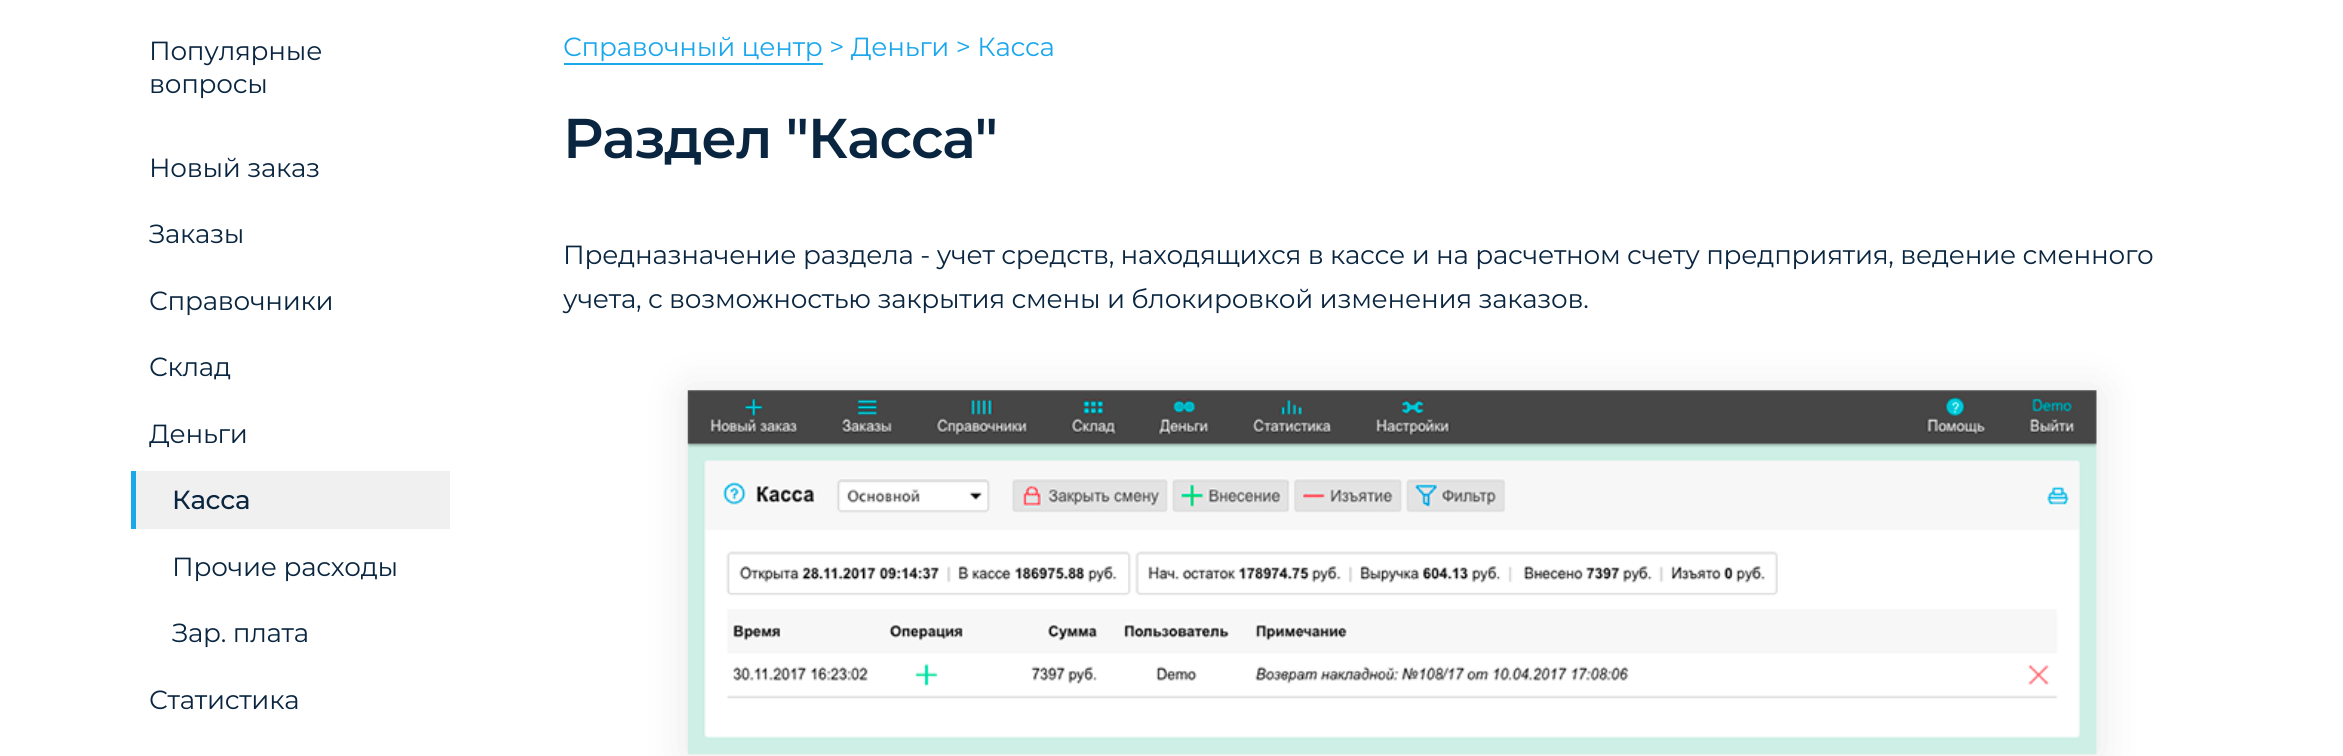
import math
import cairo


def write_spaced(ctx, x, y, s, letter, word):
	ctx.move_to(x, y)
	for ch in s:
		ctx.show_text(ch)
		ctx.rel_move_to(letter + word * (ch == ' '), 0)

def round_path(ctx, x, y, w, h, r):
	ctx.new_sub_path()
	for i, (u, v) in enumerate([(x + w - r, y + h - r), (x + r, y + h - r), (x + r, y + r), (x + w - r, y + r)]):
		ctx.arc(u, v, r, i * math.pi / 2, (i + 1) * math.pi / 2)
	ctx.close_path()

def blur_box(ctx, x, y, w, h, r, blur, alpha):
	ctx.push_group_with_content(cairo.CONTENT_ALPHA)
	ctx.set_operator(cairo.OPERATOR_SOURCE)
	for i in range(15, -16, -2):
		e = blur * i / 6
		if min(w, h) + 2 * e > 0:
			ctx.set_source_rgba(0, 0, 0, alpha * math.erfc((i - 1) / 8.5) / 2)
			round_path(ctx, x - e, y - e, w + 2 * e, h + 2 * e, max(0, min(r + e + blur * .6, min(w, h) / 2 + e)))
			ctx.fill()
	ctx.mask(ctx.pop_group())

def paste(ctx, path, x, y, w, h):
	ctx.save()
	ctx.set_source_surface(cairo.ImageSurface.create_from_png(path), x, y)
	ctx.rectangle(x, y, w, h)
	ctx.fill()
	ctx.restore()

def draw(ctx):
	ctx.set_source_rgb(1, 1, 1)
	ctx.paint()
	ctx.select_font_face('Montserrat')
	ctx.set_font_size(26.25)
	ctx.set_source_rgb(0.039, 0.145, 0.251)
	for x, y, s in [
		(149, 60, 'Популярные'),
		(149, 93, 'вопросы'),
		(149, 177, 'Новый заказ'),
		(149, 243, 'Заказы'),
		(149, 310, 'Справочники'),
		(149, 376, 'Склад'),
		(149, 443, 'Деньги'),
	]:
		write_spaced(ctx, x, y, s, -0.26, 0)
	ctx.set_source_rgb(0.941, 0.941, 0.941)
	ctx.rectangle(136, 471, 314, 58)
	ctx.fill()
	ctx.set_source_rgb(0.106, 0.655, 0.925)
	ctx.rectangle(131, 471, 5, 58)
	ctx.fill()
	ctx.select_font_face('Montserrat Medium')
	ctx.set_source_rgb(0.039, 0.145, 0.251)
	write_spaced(ctx, 172, 509, 'Касса', -0.26, 0)
	ctx.select_font_face('Montserrat')
	for x, y, s in [
		(172, 576, 'Прочие расходы'),
		(172, 642, 'Зар. плата'),
		(149, 709, 'Статистика'),
	]:
		write_spaced(ctx, x, y, s, -0.26, 0)
	ctx.set_source_rgb(0.106, 0.655, 0.925)
	write_spaced(ctx, 563, 56, 'Справочный центр > Деньги > Касса', -0.26, 0)
	ctx.rectangle(564, 63, 259, 2)
	ctx.fill()
	ctx.select_font_face('Montserrat SemiBold')
	ctx.set_font_size(56)
	ctx.set_source_rgb(0.039, 0.145, 0.251)
	write_spaced(ctx, 563, 158, 'Раздел "Касса"', -1.1, 0)
	ctx.select_font_face('Montserrat')
	ctx.set_font_size(26.25)
	write_spaced(ctx, 563, 264, 'Предназначение раздела - учет средств, находящихся в кассе и на расчетном счету предприятия, ведение сменного', -0.26, 0)
	write_spaced(ctx, 563, 308, 'учета, с возможностью закрытия смены и блокировкой изменения заказов.', -0.26, 0)
	ctx.set_source_rgb(0, 0, 0)
	blur_box(ctx, 688, 392, 1409, 364, 0, 22, 0.1)
	paste(ctx, 'media/1.png', 687, 390, 1410, 365)


surface = cairo.ImageSurface(cairo.FORMAT_RGB24, 2343, 756)
ctx = cairo.Context(surface)
options = cairo.FontOptions()
options.set_hint_metrics(cairo.HINT_METRICS_OFF)
options.set_hint_style(cairo.HINT_STYLE_NONE)
ctx.set_font_options(options)
ctx.set_miter_limit(4)
draw(ctx)
surface.write_to_png('image.png')
